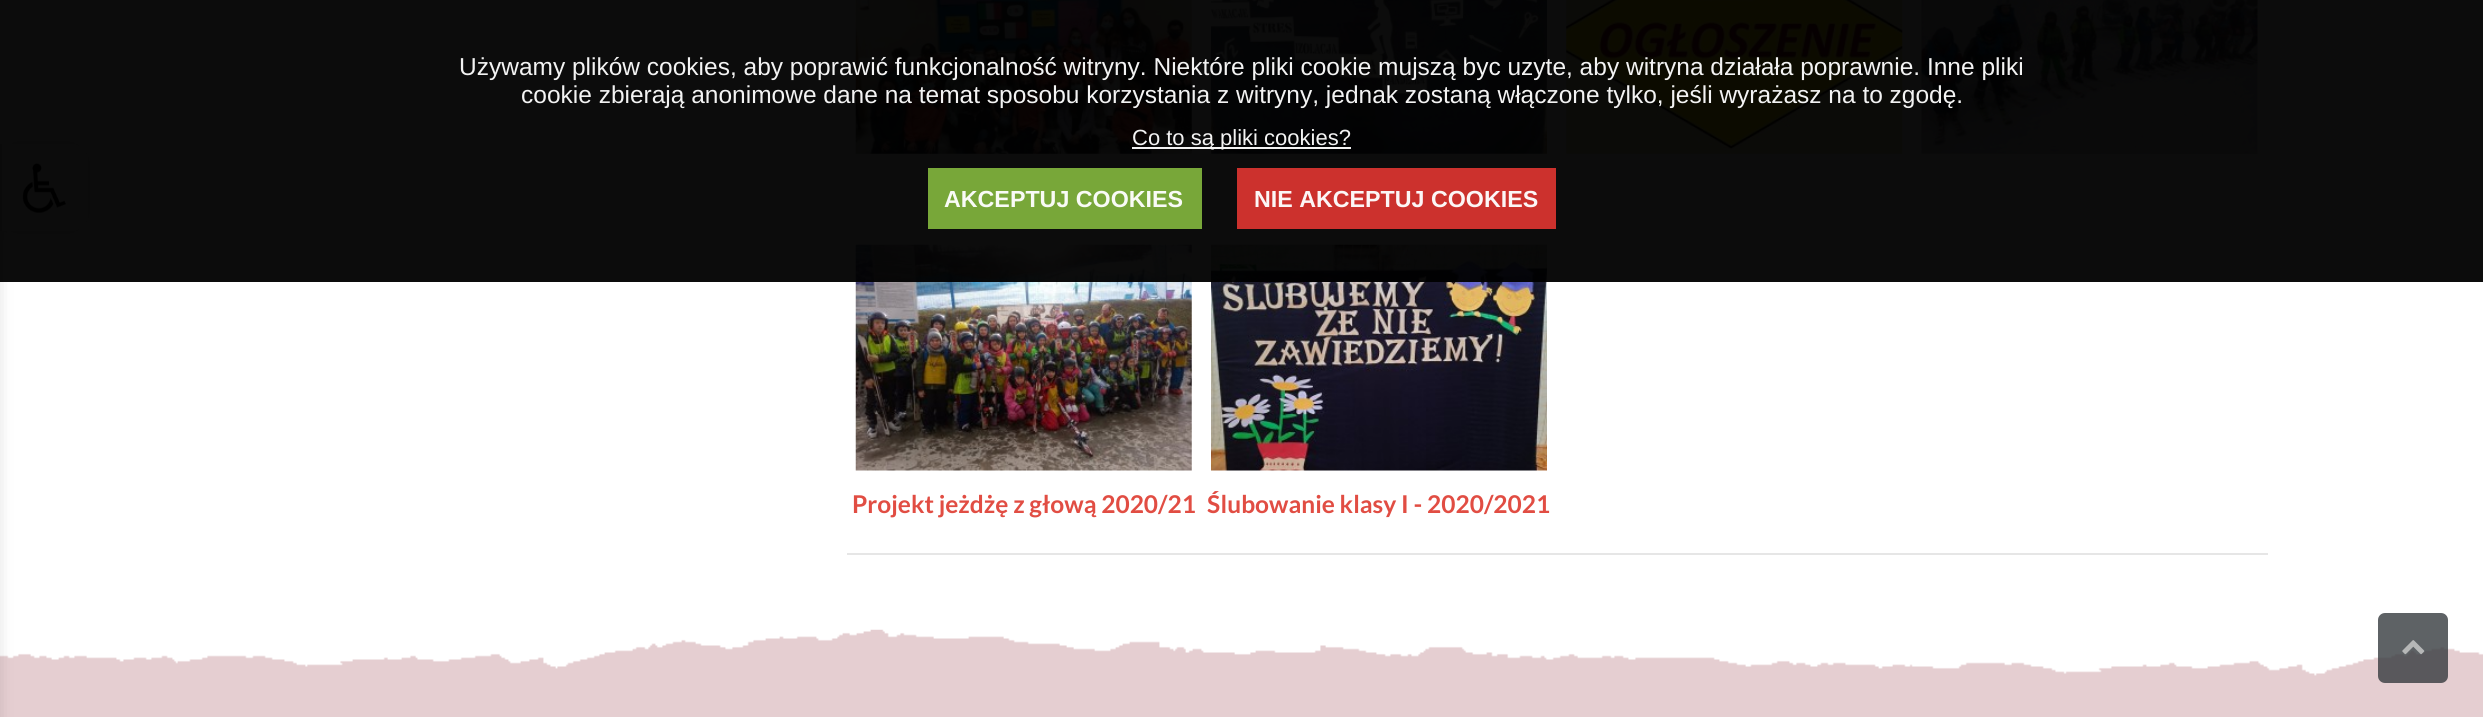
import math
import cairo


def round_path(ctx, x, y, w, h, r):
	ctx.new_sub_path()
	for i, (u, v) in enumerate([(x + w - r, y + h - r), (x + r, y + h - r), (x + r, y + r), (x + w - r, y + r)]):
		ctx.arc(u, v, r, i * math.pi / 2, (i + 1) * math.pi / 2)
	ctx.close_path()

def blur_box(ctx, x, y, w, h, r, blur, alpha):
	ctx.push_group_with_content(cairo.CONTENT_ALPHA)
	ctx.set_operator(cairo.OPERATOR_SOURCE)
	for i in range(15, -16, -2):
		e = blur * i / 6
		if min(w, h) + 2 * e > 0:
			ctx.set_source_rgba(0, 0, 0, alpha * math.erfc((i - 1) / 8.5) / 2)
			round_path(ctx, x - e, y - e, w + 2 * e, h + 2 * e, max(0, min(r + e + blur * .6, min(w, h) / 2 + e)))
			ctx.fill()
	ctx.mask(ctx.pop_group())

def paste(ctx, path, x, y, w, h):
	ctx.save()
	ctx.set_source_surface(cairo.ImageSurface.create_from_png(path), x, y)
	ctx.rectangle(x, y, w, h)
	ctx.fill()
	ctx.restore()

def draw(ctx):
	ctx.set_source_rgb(1, 1, 1)
	ctx.paint()
	paste(ctx, 'media/8.png', 0, 629, 2483, 88)
	ctx.set_source_rgb(0, 0, 0)
	blur_box(ctx, -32, 156, 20, 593, 0, 10.5, 0.5)
	blur_box(ctx, 12, 156, 63, 63, 5, 10.5, 0.5)
	ctx.set_source_rgb(1, 1, 1)
	ctx.new_path()
	ctx.move_to(0, 144)
	ctx.line_to(70, 144)
	ctx.curve_to(80, 144, 88, 152, 88, 162)
	ctx.line_to(88, 213)
	ctx.curve_to(88, 223, 80, 231, 70, 231)
	ctx.line_to(0, 231)
	ctx.close_path()
	ctx.fill()
	ctx.set_source_rgb(0.827, 0.827, 0.827)
	ctx.rectangle(0, 144, 2, 87)
	ctx.fill()
	paste(ctx, 'media/1.png', 22, 163, 44, 51)
	paste(ctx, 'media/2.png', 855, 0, 337, 154)
	paste(ctx, 'media/3.png', 1211, 0, 336, 154)
	paste(ctx, 'media/4.png', 1566, 0, 337, 154)
	paste(ctx, 'media/5.png', 1921, 0, 337, 154)
	paste(ctx, 'media/6.png', 855, 244, 337, 227)
	paste(ctx, 'media/7.png', 1211, 244, 336, 227)
	ctx.set_source_rgba(0, 0, 0, 0.95)
	ctx.rectangle(0, 0, 2483, 282)
	ctx.fill()
	ctx.select_font_face('Liberation Sans')
	ctx.set_font_size(24.5)
	ctx.set_source_rgb(0.953, 0.953, 0.953)
	ctx.move_to(459, 75)
	ctx.show_text('Używamy plików cookies, aby poprawić funkcjonalność witryny. Niektóre pliki cookie mujszą byc uzyte, aby witryna działała poprawnie. Inne pliki')
	ctx.move_to(521, 103)
	ctx.show_text('cookie zbierają anonimowe dane na temat sposobu korzystania z witryny, jednak zostaną włączone tylko, jeśli wyrażasz na to zgodę.')
	ctx.set_source_rgba(1, 1, 1, 0.95)
	ctx.rectangle(1132, 147, 219, 2)
	ctx.fill()
	ctx.set_font_size(22)
	ctx.set_source_rgb(0.953, 0.953, 0.953)
	ctx.move_to(1132, 145)
	ctx.show_text('Co to są pliki cookies?')
	ctx.set_source_rgba(0.49, 0.686, 0.231, 0.95)
	ctx.rectangle(928, 168, 274, 61)
	ctx.fill()
	ctx.select_font_face('Liberation Sans', cairo.FONT_SLANT_NORMAL, cairo.FONT_WEIGHT_BOLD)
	ctx.set_font_size(23.25)
	ctx.set_source_rgb(0.973, 0.984, 0.961)
	ctx.move_to(944, 207)
	ctx.show_text('AKCEPTUJ COOKIES')
	ctx.set_source_rgba(0.835, 0.2, 0.184, 0.95)
	ctx.rectangle(1237, 168, 319, 61)
	ctx.fill()
	ctx.set_source_rgb(0.988, 0.961, 0.961)
	ctx.move_to(1254, 207)
	ctx.show_text('NIE AKCEPTUJ COOKIES')
	ctx.select_font_face('Lato', cairo.FONT_SLANT_NORMAL, cairo.FONT_WEIGHT_BOLD)
	ctx.set_font_size(24.5)
	ctx.set_source_rgb(0.882, 0.302, 0.263)
	ctx.move_to(852, 513)
	ctx.show_text('Projekt jeżdżę z głową 2020/21')
	ctx.move_to(1207, 513)
	ctx.show_text('Ślubowanie klasy I - 2020/2021')
	ctx.set_source_rgb(0.902, 0.902, 0.902)
	ctx.rectangle(847, 553, 1421, 2)
	ctx.fill()
	ctx.set_source_rgba(0.212, 0.231, 0.247, 0.8)
	round_path(ctx, 2378, 613, 70, 70, 7)
	ctx.fill()
	paste(ctx, 'media/9.png', 2402, 640, 23, 15)


surface = cairo.ImageSurface(cairo.FORMAT_RGB24, 2483, 717)
ctx = cairo.Context(surface)
options = cairo.FontOptions()
options.set_hint_metrics(cairo.HINT_METRICS_OFF)
options.set_hint_style(cairo.HINT_STYLE_NONE)
ctx.set_font_options(options)
ctx.set_miter_limit(4)
draw(ctx)
surface.write_to_png('image.png')
